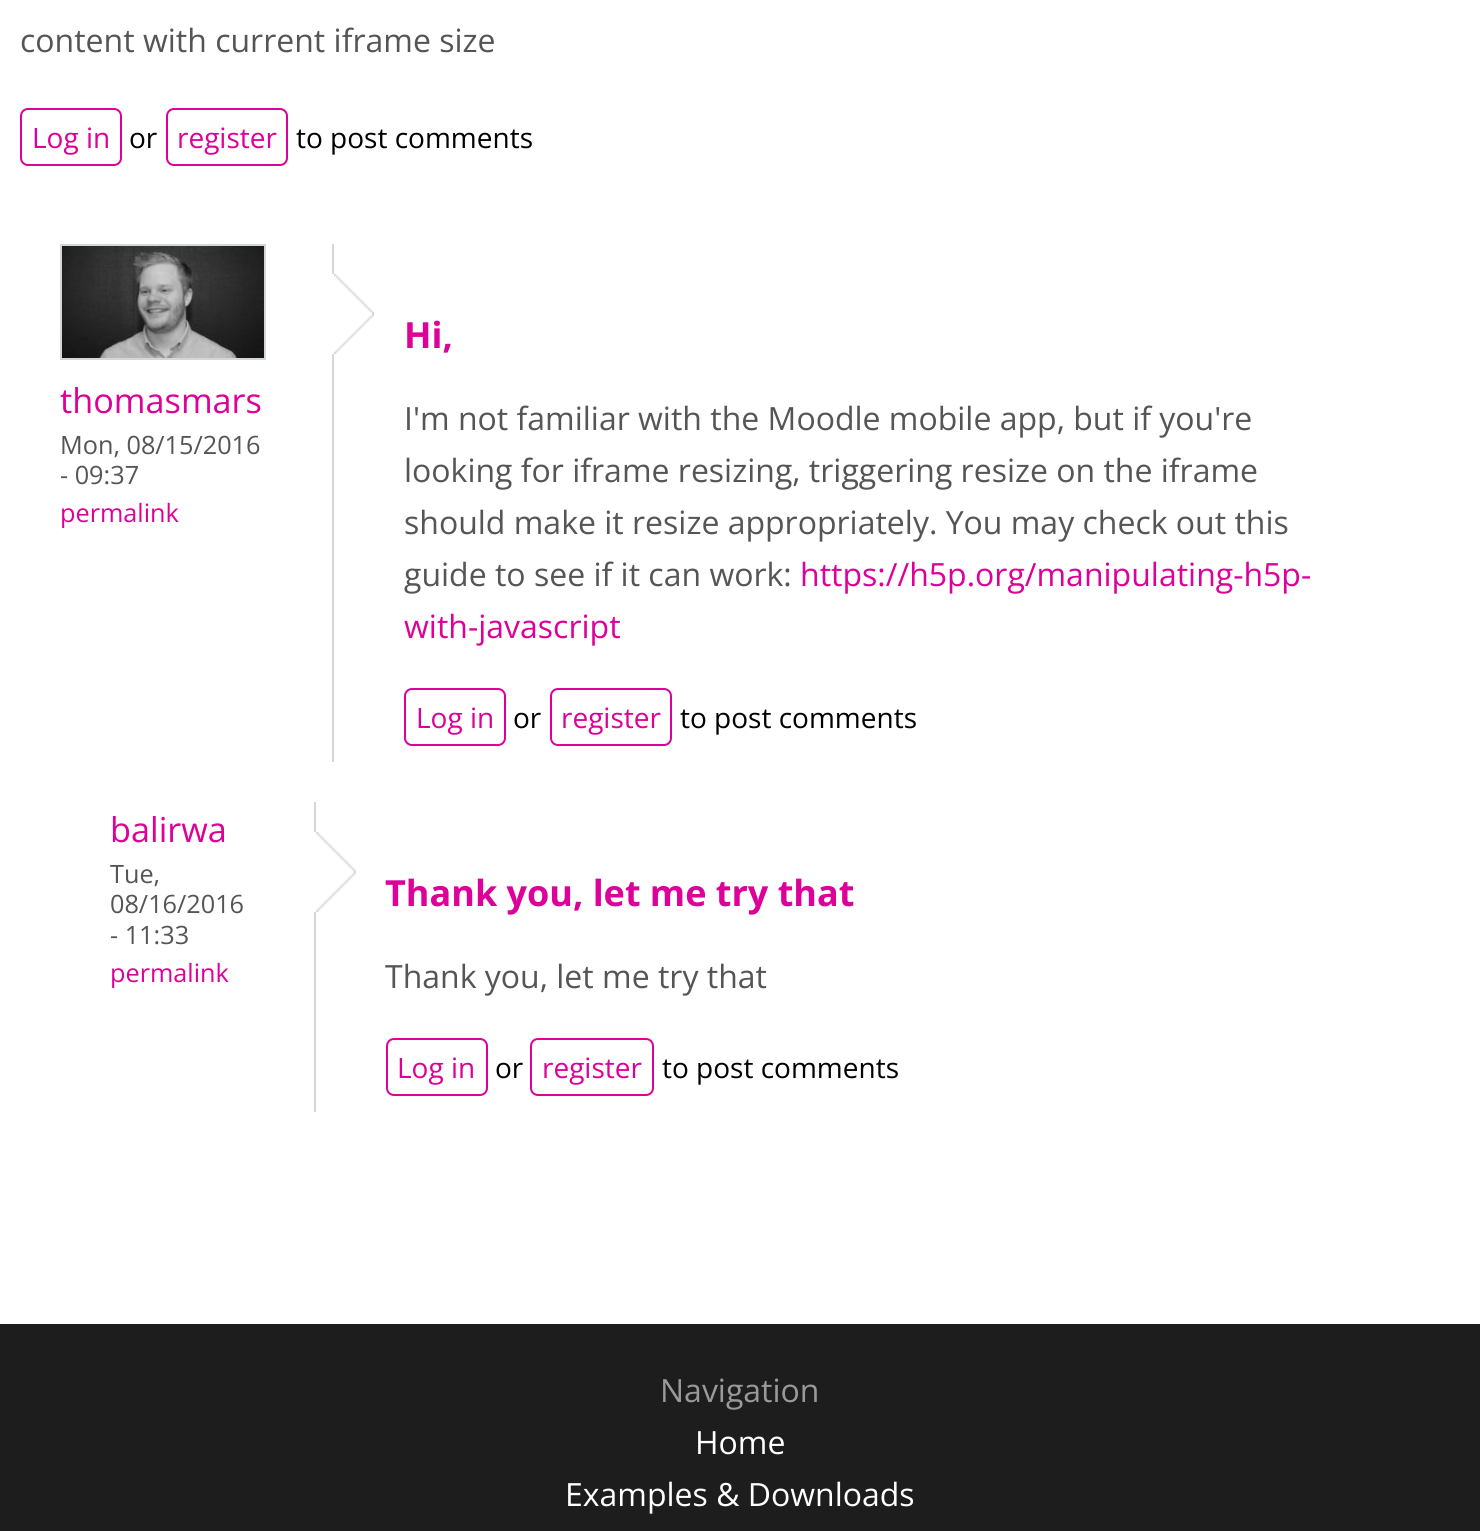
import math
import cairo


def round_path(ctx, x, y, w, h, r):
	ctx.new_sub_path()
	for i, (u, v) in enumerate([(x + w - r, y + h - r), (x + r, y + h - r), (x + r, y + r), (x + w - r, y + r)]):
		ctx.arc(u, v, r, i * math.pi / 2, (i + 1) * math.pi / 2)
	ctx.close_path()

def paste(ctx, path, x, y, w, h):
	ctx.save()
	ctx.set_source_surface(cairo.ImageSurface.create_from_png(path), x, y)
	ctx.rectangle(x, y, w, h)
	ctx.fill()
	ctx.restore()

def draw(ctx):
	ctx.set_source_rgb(1, 1, 1)
	ctx.paint()
	ctx.select_font_face('Open Sans')
	ctx.set_font_size(32)
	ctx.set_source_rgb(0.333, 0.333, 0.333)
	ctx.move_to(20, 52)
	ctx.show_text('content with current iframe size')
	round_path(ctx, 21, 109, 100, 56, 7)
	ctx.set_source_rgb(0.867, 0, 0.6)
	ctx.stroke()
	ctx.set_font_size(28)
	ctx.move_to(32, 148)
	ctx.show_text('Log in')
	ctx.set_source_rgb(0, 0, 0)
	ctx.move_to(129, 148)
	ctx.show_text('or')
	round_path(ctx, 167, 109, 120, 56, 7)
	ctx.set_source_rgb(0.867, 0, 0.6)
	ctx.stroke()
	ctx.move_to(177, 148)
	ctx.show_text('register')
	ctx.set_source_rgb(0, 0, 0)
	ctx.move_to(296, 148)
	ctx.show_text('to post comments')
	ctx.rectangle(61, 245, 204, 114)
	ctx.set_source_rgb(0.827, 0.843, 0.851)
	ctx.stroke()
	paste(ctx, 'media/1.png', 62, 246, 202, 112)
	ctx.set_font_size(34.25)
	ctx.set_source_rgb(0.867, 0, 0.6)
	ctx.move_to(60, 413)
	ctx.show_text('thomasmars')
	ctx.set_font_size(25.25)
	ctx.set_source_rgb(0.333, 0.333, 0.333)
	ctx.move_to(60, 454)
	ctx.show_text('Mon, 08/15/2016')
	ctx.move_to(60, 484)
	ctx.show_text('- 09:37')
	ctx.set_source_rgb(0.867, 0, 0.6)
	ctx.move_to(60, 522)
	ctx.show_text('permalink')
	ctx.set_source_rgb(0.827, 0.843, 0.851)
	ctx.rectangle(332, 244, 2, 518)
	ctx.fill()
	paste(ctx, 'media/2.png', 334, 274, 40, 80)
	ctx.set_source_rgb(1, 1, 1)
	ctx.rectangle(332, 274, 2, 80)
	ctx.fill()
	ctx.select_font_face('Open Sans', cairo.FONT_SLANT_NORMAL, cairo.FONT_WEIGHT_BOLD)
	ctx.set_font_size(36)
	ctx.set_source_rgb(0.867, 0, 0.6)
	ctx.move_to(404, 348)
	ctx.show_text('Hi,')
	ctx.select_font_face('Open Sans')
	ctx.set_font_size(32)
	ctx.set_source_rgb(0.333, 0.333, 0.333)
	for x, y, s in [
		(404, 430, 'I\'m not familiar with the Moodle mobile app, but if you\'re'),
		(404, 482, 'looking for iframe resizing, triggering resize on the iframe'),
		(404, 534, 'should make it resize appropriately. You may check out this'),
		(404, 586, 'guide to see if it can work:'),
	]:
		ctx.move_to(x, y)
		ctx.show_text(s)
	ctx.set_source_rgb(0.867, 0, 0.6)
	ctx.move_to(800, 586)
	ctx.show_text('https://h5p.org/manipulating-h5p-')
	ctx.move_to(404, 638)
	ctx.show_text('with-javascript')
	round_path(ctx, 405, 689, 100, 56, 7)
	ctx.stroke()
	ctx.set_font_size(28)
	ctx.move_to(416, 728)
	ctx.show_text('Log in')
	ctx.set_source_rgb(0, 0, 0)
	ctx.move_to(513, 728)
	ctx.show_text('or')
	round_path(ctx, 551, 689, 120, 56, 7)
	ctx.set_source_rgb(0.867, 0, 0.6)
	ctx.stroke()
	ctx.move_to(561, 728)
	ctx.show_text('register')
	ctx.set_source_rgb(0, 0, 0)
	ctx.move_to(680, 728)
	ctx.show_text('to post comments')
	ctx.set_font_size(34.25)
	ctx.set_source_rgb(0.867, 0, 0.6)
	ctx.move_to(110, 842)
	ctx.show_text('balirwa')
	ctx.set_font_size(25.25)
	ctx.set_source_rgb(0.333, 0.333, 0.333)
	for x, y, s in [
		(110, 883, 'Tue,'),
		(110, 913, '08/16/2016'),
		(110, 944, '- 11:33'),
	]:
		ctx.move_to(x, y)
		ctx.show_text(s)
	ctx.set_source_rgb(0.867, 0, 0.6)
	ctx.move_to(110, 982)
	ctx.show_text('permalink')
	ctx.set_source_rgb(0.827, 0.843, 0.851)
	ctx.rectangle(314, 802, 2, 310)
	ctx.fill()
	paste(ctx, 'media/3.png', 316, 832, 40, 80)
	ctx.set_source_rgb(1, 1, 1)
	ctx.rectangle(314, 832, 2, 80)
	ctx.fill()
	ctx.select_font_face('Open Sans', cairo.FONT_SLANT_NORMAL, cairo.FONT_WEIGHT_BOLD)
	ctx.set_font_size(36)
	ctx.set_source_rgb(0.867, 0, 0.6)
	ctx.move_to(385, 906)
	ctx.show_text('Thank you, let me try that')
	ctx.select_font_face('Open Sans')
	ctx.set_font_size(32)
	ctx.set_source_rgb(0.333, 0.333, 0.333)
	ctx.move_to(385, 988)
	ctx.show_text('Thank you, let me try that')
	round_path(ctx, 387, 1039, 100, 56, 7)
	ctx.set_source_rgb(0.867, 0, 0.6)
	ctx.stroke()
	ctx.set_font_size(28)
	ctx.move_to(397, 1078)
	ctx.show_text('Log in')
	ctx.set_source_rgb(0, 0, 0)
	ctx.move_to(495, 1078)
	ctx.show_text('or')
	round_path(ctx, 531, 1039, 122, 56, 7)
	ctx.set_source_rgb(0.867, 0, 0.6)
	ctx.stroke()
	ctx.move_to(542, 1078)
	ctx.show_text('register')
	ctx.set_source_rgb(0, 0, 0)
	ctx.move_to(662, 1078)
	ctx.show_text('to post comments')
	ctx.set_source_rgb(0.114, 0.114, 0.114)
	ctx.rectangle(0, 1324, 1480, 207)
	ctx.fill()
	ctx.set_font_size(32)
	ctx.set_source_rgb(0.6, 0.6, 0.6)
	ctx.move_to(660, 1402)
	ctx.show_text('Navigation')
	ctx.set_source_rgb(1, 1, 1)
	ctx.move_to(695, 1454)
	ctx.show_text('Home')
	ctx.move_to(565, 1506)
	ctx.show_text('Examples & Downloads')


surface = cairo.ImageSurface(cairo.FORMAT_RGB24, 1480, 1531)
ctx = cairo.Context(surface)
options = cairo.FontOptions()
options.set_hint_metrics(cairo.HINT_METRICS_OFF)
options.set_hint_style(cairo.HINT_STYLE_NONE)
ctx.set_font_options(options)
ctx.set_miter_limit(4)
draw(ctx)
surface.write_to_png('image.png')
